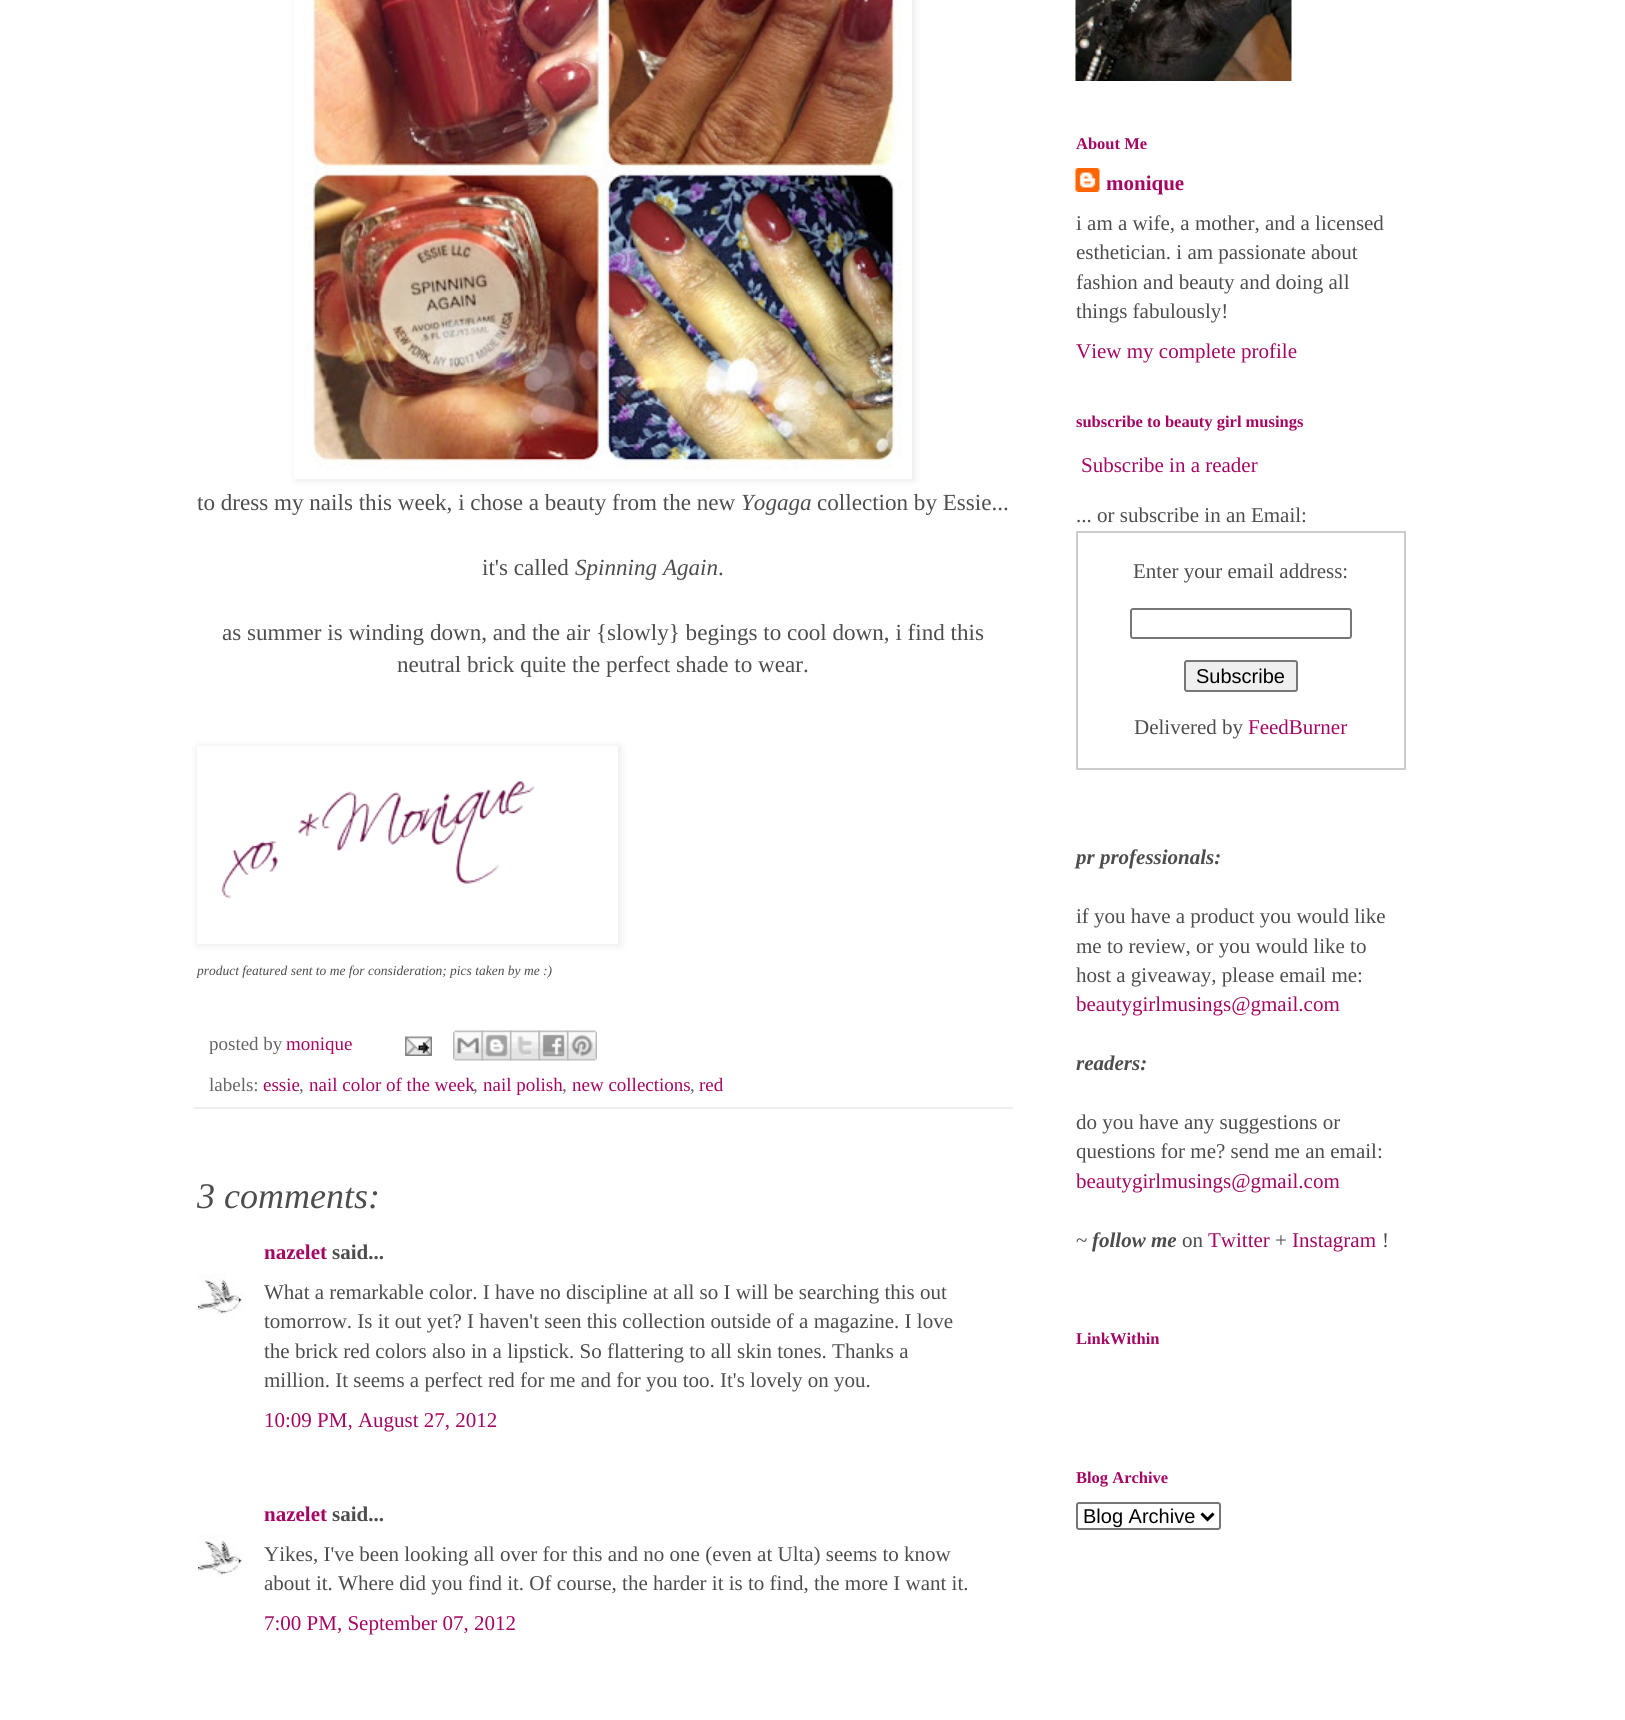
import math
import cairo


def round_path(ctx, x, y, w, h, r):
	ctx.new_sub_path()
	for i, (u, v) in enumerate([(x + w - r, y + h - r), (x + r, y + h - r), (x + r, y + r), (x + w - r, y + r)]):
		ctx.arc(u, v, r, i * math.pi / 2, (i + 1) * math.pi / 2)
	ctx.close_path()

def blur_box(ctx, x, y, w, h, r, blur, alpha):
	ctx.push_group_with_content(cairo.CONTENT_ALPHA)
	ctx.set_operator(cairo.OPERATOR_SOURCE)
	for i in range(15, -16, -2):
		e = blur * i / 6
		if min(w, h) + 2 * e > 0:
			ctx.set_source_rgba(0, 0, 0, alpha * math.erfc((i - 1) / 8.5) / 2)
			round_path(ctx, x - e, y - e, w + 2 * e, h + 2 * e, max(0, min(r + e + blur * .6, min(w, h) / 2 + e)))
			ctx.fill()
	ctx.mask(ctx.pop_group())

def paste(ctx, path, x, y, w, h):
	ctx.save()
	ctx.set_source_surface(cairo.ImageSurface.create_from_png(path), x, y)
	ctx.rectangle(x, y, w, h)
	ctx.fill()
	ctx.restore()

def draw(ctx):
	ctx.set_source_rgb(1, 1, 1)
	ctx.paint()
	ctx.set_source_rgb(0, 0, 0)
	blur_box(ctx, 296, -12, 618, 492, 0, 4, 0.1)
	ctx.set_source_rgb(1, 1, 1)
	ctx.rectangle(294, 0, 618, 479)
	ctx.fill()
	paste(ctx, 'media/1.png', 303, 0, 600, 470)
	ctx.select_font_face('Liberation Serif')
	ctx.set_font_size(23.1)
	ctx.set_source_rgb(0.306, 0.302, 0.306)
	ctx.move_to(197, 510)
	ctx.show_text('to dress my nails this week, i chose a beauty from the new')
	ctx.select_font_face('Liberation Serif', cairo.FONT_SLANT_ITALIC)
	ctx.move_to(741, 510)
	ctx.show_text('Yogaga')
	ctx.select_font_face('Liberation Serif')
	ctx.move_to(817, 510)
	ctx.show_text('collection by Essie...')
	ctx.move_to(482, 575)
	ctx.show_text('it\'s called')
	ctx.select_font_face('Liberation Serif', cairo.FONT_SLANT_ITALIC)
	ctx.move_to(575, 575)
	ctx.show_text('Spinning Again')
	ctx.select_font_face('Liberation Serif')
	for x, y, s in [
		(718, 575, '.'),
		(222, 640, 'as summer is winding down, and the air {slowly} begings to cool down, i find this'),
		(397, 672, 'neutral brick quite the perfect shade to wear.'),
	]:
		ctx.move_to(x, y)
		ctx.show_text(s)
	ctx.save()
	ctx.set_fill_rule(cairo.FILL_RULE_EVEN_ODD)
	ctx.new_path()
	ctx.move_to(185, 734)
	ctx.line_to(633, 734)
	ctx.line_to(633, 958)
	ctx.line_to(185, 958)
	ctx.close_path()
	ctx.move_to(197, 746)
	ctx.line_to(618, 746)
	ctx.line_to(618, 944)
	ctx.line_to(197, 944)
	ctx.close_path()
	ctx.clip()
	ctx.set_source_rgb(0, 0, 0)
	blur_box(ctx, 198, 747, 422, 198, 0, 4, 0.1)
	ctx.restore()
	paste(ctx, 'media/2.png', 221, 781, 314, 118)
	ctx.select_font_face('Liberation Serif', cairo.FONT_SLANT_ITALIC)
	ctx.set_font_size(13.5)
	ctx.move_to(197, 975)
	ctx.show_text('product featured sent to me for consideration; pics taken by me :)')
	ctx.set_source_rgb(0.933, 0.933, 0.933)
	ctx.rectangle(194, 1107, 819, 2)
	ctx.fill()
	ctx.select_font_face('Liberation Serif')
	ctx.set_font_size(19)
	ctx.set_source_rgb(0.4, 0.4, 0.4)
	ctx.move_to(209, 1050)
	ctx.show_text('posted by')
	ctx.set_source_rgb(0.647, 0.024, 0.388)
	ctx.move_to(286, 1050)
	ctx.show_text('monique')
	paste(ctx, 'media/3.png', 405, 1036, 27, 20)
	paste(ctx, 'media/4.png', 453, 1030, 30, 31)
	paste(ctx, 'media/5.png', 481, 1030, 31, 31)
	paste(ctx, 'media/6.png', 510, 1030, 30, 31)
	paste(ctx, 'media/7.png', 538, 1030, 31, 31)
	paste(ctx, 'media/8.png', 567, 1030, 30, 31)
	ctx.set_source_rgb(0.4, 0.4, 0.4)
	ctx.move_to(209, 1091)
	ctx.show_text('labels:')
	ctx.set_source_rgb(0.647, 0.024, 0.388)
	ctx.move_to(263, 1091)
	ctx.show_text('essie')
	ctx.set_source_rgb(0.4, 0.4, 0.4)
	ctx.move_to(299, 1091)
	ctx.show_text(',')
	ctx.set_source_rgb(0.647, 0.024, 0.388)
	ctx.move_to(309, 1091)
	ctx.show_text('nail color of the week')
	ctx.set_source_rgb(0.4, 0.4, 0.4)
	ctx.move_to(473, 1091)
	ctx.show_text(',')
	ctx.set_source_rgb(0.647, 0.024, 0.388)
	ctx.move_to(483, 1091)
	ctx.show_text('nail polish')
	ctx.set_source_rgb(0.4, 0.4, 0.4)
	ctx.move_to(562, 1091)
	ctx.show_text(',')
	ctx.set_source_rgb(0.647, 0.024, 0.388)
	ctx.move_to(572, 1091)
	ctx.show_text('new collections')
	ctx.set_source_rgb(0.4, 0.4, 0.4)
	ctx.move_to(690, 1091)
	ctx.show_text(',')
	ctx.set_source_rgb(0.647, 0.024, 0.388)
	ctx.move_to(699, 1091)
	ctx.show_text('red')
	ctx.select_font_face('Liberation Serif', cairo.FONT_SLANT_ITALIC)
	ctx.set_font_size(36)
	ctx.set_source_rgb(0.306, 0.302, 0.306)
	ctx.move_to(197, 1208)
	ctx.show_text('3 comments:')
	ctx.select_font_face('Liberation Serif', cairo.FONT_SLANT_NORMAL, cairo.FONT_WEIGHT_BOLD)
	ctx.set_font_size(21)
	ctx.set_source_rgb(0.647, 0.024, 0.388)
	ctx.move_to(264, 1259)
	ctx.show_text('nazelet')
	ctx.set_source_rgb(0.306, 0.302, 0.306)
	ctx.move_to(332, 1259)
	ctx.show_text('said...')
	paste(ctx, 'media/9.png', 198, 1273, 45, 44)
	ctx.select_font_face('Liberation Serif')
	for x, y, s in [
		(264, 1299, 'What a remarkable color. I have no discipline at all so I will be searching this out'),
		(264, 1328, 'tomorrow. Is it out yet? I haven\'t seen this collection outside of a magazine. I love'),
		(264, 1358, 'the brick red colors also in a lipstick. So flattering to all skin tones. Thanks a'),
		(264, 1387, 'million. It seems a perfect red for me and for you too. It\'s lovely on you.'),
	]:
		ctx.move_to(x, y)
		ctx.show_text(s)
	ctx.set_source_rgb(0.647, 0.024, 0.388)
	ctx.move_to(264, 1427)
	ctx.show_text('10:09 PM, August 27, 2012')
	ctx.select_font_face('Liberation Serif', cairo.FONT_SLANT_NORMAL, cairo.FONT_WEIGHT_BOLD)
	ctx.move_to(264, 1521)
	ctx.show_text('nazelet')
	ctx.set_source_rgb(0.306, 0.302, 0.306)
	ctx.move_to(332, 1521)
	ctx.show_text('said...')
	paste(ctx, 'media/10.png', 198, 1534, 45, 44)
	ctx.select_font_face('Liberation Serif')
	ctx.move_to(264, 1561)
	ctx.show_text('Yikes, I\'ve been looking all over for this and no one (even at Ulta) seems to know')
	ctx.move_to(264, 1590)
	ctx.show_text('about it. Where did you find it. Of course, the harder it is to find, the more I want it.')
	ctx.set_source_rgb(0.647, 0.024, 0.388)
	ctx.move_to(264, 1630)
	ctx.show_text('7:00 PM, September 07, 2012')
	paste(ctx, 'media/11.png', 1075, 0, 217, 81)
	ctx.select_font_face('Liberation Serif', cairo.FONT_SLANT_NORMAL, cairo.FONT_WEIGHT_BOLD)
	ctx.set_font_size(16.5)
	ctx.move_to(1076, 149)
	ctx.show_text('About Me')
	paste(ctx, 'media/12.png', 1075, 168, 25, 24)
	ctx.set_font_size(21)
	ctx.move_to(1106, 190)
	ctx.show_text('monique')
	ctx.select_font_face('Liberation Serif')
	ctx.set_source_rgb(0.306, 0.302, 0.306)
	for x, y, s in [
		(1076, 230, 'i am a wife, a mother, and a licensed'),
		(1076, 259, 'esthetician. i am passionate about'),
		(1076, 289, 'fashion and beauty and doing all'),
		(1076, 318, 'things fabulously!'),
	]:
		ctx.move_to(x, y)
		ctx.show_text(s)
	ctx.set_source_rgb(0.647, 0.024, 0.388)
	ctx.move_to(1076, 358)
	ctx.show_text('View my complete profile')
	ctx.select_font_face('Liberation Serif', cairo.FONT_SLANT_NORMAL, cairo.FONT_WEIGHT_BOLD)
	ctx.set_font_size(16.5)
	ctx.move_to(1076, 427)
	ctx.show_text('subscribe to beauty girl musings')
	ctx.select_font_face('Liberation Serif')
	ctx.set_font_size(21)
	ctx.move_to(1081, 472)
	ctx.show_text('Subscribe in a reader')
	ctx.set_source_rgb(0.306, 0.302, 0.306)
	ctx.move_to(1076, 522)
	ctx.show_text('... or subscribe in an Email:')
	ctx.rectangle(1077, 532, 328, 237)
	ctx.set_source_rgb(0.8, 0.8, 0.8)
	ctx.stroke()
	ctx.set_source_rgb(0.306, 0.302, 0.306)
	ctx.move_to(1133, 578)
	ctx.show_text('Enter your email address:')
	round_path(ctx, 1131, 609, 220, 29, 2)
	ctx.set_source_rgb(0.463, 0.463, 0.463)
	ctx.stroke()
	ctx.set_source_rgb(0.937, 0.937, 0.937)
	round_path(ctx, 1185, 661, 112, 30, 2)
	ctx.fill_preserve()
	ctx.set_source_rgb(0.463, 0.463, 0.463)
	ctx.stroke()
	ctx.select_font_face('Liberation Sans')
	ctx.set_font_size(20)
	ctx.set_source_rgb(0, 0, 0)
	ctx.move_to(1196, 683)
	ctx.show_text('Subscribe')
	ctx.select_font_face('Liberation Serif')
	ctx.set_font_size(21)
	ctx.set_source_rgb(0.306, 0.302, 0.306)
	ctx.move_to(1134, 734)
	ctx.show_text('Delivered by')
	ctx.set_source_rgb(0.647, 0.024, 0.388)
	ctx.move_to(1248, 734)
	ctx.show_text('FeedBurner')
	ctx.select_font_face('Liberation Serif', cairo.FONT_SLANT_ITALIC, cairo.FONT_WEIGHT_BOLD)
	ctx.set_source_rgb(0.306, 0.302, 0.306)
	ctx.move_to(1076, 864)
	ctx.show_text('pr professionals:')
	ctx.select_font_face('Liberation Serif')
	for x, y, s in [
		(1076, 923, 'if you have a product you would like'),
		(1076, 953, 'me to review, or you would like to'),
		(1076, 982, 'host a giveaway, please email me:'),
	]:
		ctx.move_to(x, y)
		ctx.show_text(s)
	ctx.set_source_rgb(0.647, 0.024, 0.388)
	ctx.move_to(1076, 1011)
	ctx.show_text('beautygirlmusings@gmail.com')
	ctx.select_font_face('Liberation Serif', cairo.FONT_SLANT_ITALIC, cairo.FONT_WEIGHT_BOLD)
	ctx.set_source_rgb(0.306, 0.302, 0.306)
	ctx.move_to(1076, 1070)
	ctx.show_text('readers:')
	ctx.select_font_face('Liberation Serif')
	ctx.move_to(1076, 1129)
	ctx.show_text('do you have any suggestions or')
	ctx.move_to(1076, 1158)
	ctx.show_text('questions for me? send me an email:')
	ctx.set_source_rgb(0.647, 0.024, 0.388)
	ctx.move_to(1076, 1188)
	ctx.show_text('beautygirlmusings@gmail.com')
	ctx.set_source_rgb(0.306, 0.302, 0.306)
	ctx.move_to(1076, 1247)
	ctx.show_text('~')
	ctx.select_font_face('Liberation Serif', cairo.FONT_SLANT_ITALIC, cairo.FONT_WEIGHT_BOLD)
	ctx.move_to(1092, 1247)
	ctx.show_text('follow me')
	ctx.select_font_face('Liberation Serif')
	ctx.move_to(1182, 1247)
	ctx.show_text('on')
	ctx.set_source_rgb(0.647, 0.024, 0.388)
	ctx.move_to(1208, 1247)
	ctx.show_text('Twitter')
	ctx.set_source_rgb(0.306, 0.302, 0.306)
	ctx.move_to(1275, 1247)
	ctx.show_text('+')
	ctx.set_source_rgb(0.647, 0.024, 0.388)
	ctx.move_to(1292, 1247)
	ctx.show_text('Instagram')
	ctx.set_source_rgb(0.306, 0.302, 0.306)
	ctx.move_to(1382, 1247)
	ctx.show_text('!')
	ctx.select_font_face('Liberation Serif', cairo.FONT_SLANT_NORMAL, cairo.FONT_WEIGHT_BOLD)
	ctx.set_font_size(16.5)
	ctx.set_source_rgb(0.647, 0.024, 0.388)
	ctx.move_to(1076, 1344)
	ctx.show_text('LinkWithin')
	ctx.move_to(1076, 1483)
	ctx.show_text('Blog Archive')
	round_path(ctx, 1077, 1503, 143, 26, 2)
	ctx.set_source_rgb(0.463, 0.463, 0.463)
	ctx.stroke()
	ctx.new_path()
	ctx.move_to(1201.5, 1513.5)
	ctx.line_to(1207.5, 1519.5)
	ctx.line_to(1213.5, 1513.5)
	ctx.set_source_rgb(0, 0, 0)
	ctx.set_line_width(3)
	ctx.stroke()
	ctx.select_font_face('Liberation Sans')
	ctx.set_font_size(20)
	ctx.move_to(1083, 1523)
	ctx.show_text('Blog Archive')


surface = cairo.ImageSurface(cairo.FORMAT_RGB24, 1625, 1720)
ctx = cairo.Context(surface)
options = cairo.FontOptions()
options.set_hint_metrics(cairo.HINT_METRICS_OFF)
options.set_hint_style(cairo.HINT_STYLE_NONE)
ctx.set_font_options(options)
ctx.set_miter_limit(4)
draw(ctx)
surface.write_to_png('image.png')
